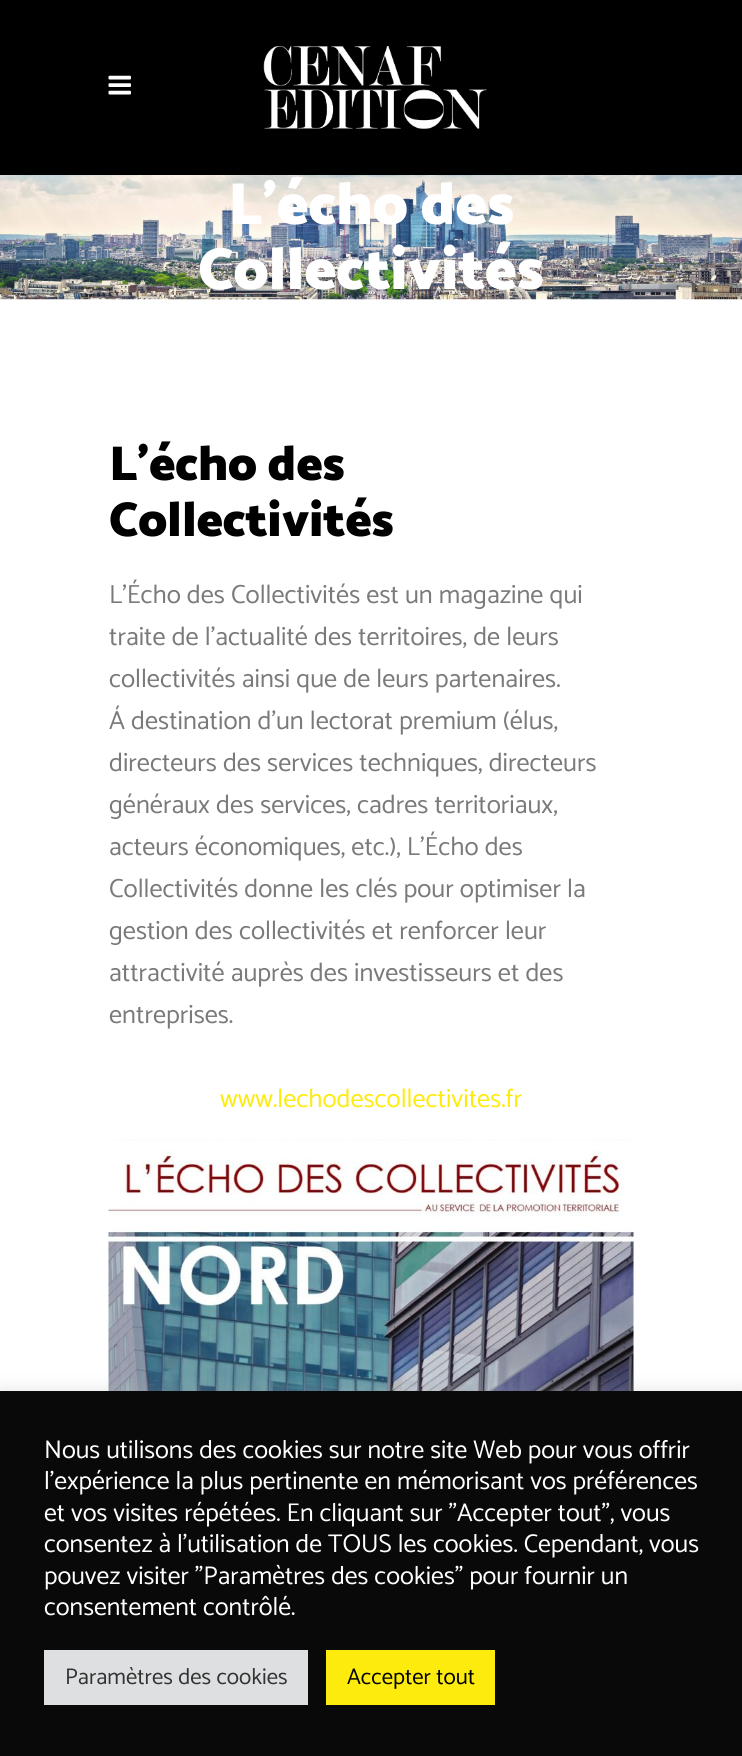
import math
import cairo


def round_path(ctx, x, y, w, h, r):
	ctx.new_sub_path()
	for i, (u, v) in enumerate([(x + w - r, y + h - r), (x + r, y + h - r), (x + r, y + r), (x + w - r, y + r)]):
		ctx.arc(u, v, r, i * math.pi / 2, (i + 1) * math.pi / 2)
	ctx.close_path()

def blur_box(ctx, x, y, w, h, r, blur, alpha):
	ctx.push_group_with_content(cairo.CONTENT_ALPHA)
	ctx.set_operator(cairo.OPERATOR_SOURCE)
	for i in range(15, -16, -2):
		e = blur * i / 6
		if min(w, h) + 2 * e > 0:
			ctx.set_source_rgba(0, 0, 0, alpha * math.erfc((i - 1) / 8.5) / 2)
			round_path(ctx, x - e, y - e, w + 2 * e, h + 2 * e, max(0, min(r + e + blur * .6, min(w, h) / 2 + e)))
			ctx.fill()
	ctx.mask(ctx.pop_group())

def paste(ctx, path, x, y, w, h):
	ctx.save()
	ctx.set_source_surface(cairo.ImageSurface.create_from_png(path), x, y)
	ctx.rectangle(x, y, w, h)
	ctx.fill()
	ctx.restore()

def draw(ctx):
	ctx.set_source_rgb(1, 1, 1)
	ctx.paint()
	ctx.set_source_rgb(0, 0, 0)
	ctx.rectangle(0, 0, 742, 175)
	ctx.fill()
	paste(ctx, 'media/1.png', 108, 75, 23, 20)
	paste(ctx, 'media/2.png', 263, 45, 224, 85)
	paste(ctx, 'media/3.png', 0, 175, 742, 125)
	ctx.select_font_face('Catamaran Black')
	ctx.set_font_size(59.5)
	ctx.set_source_rgb(1, 1, 1)
	ctx.move_to(228, 224)
	ctx.show_text('L’écho des')
	ctx.move_to(198, 289)
	ctx.show_text('Collectivités')
	ctx.set_font_size(49)
	ctx.set_source_rgb(0, 0, 0)
	ctx.move_to(109, 480)
	ctx.show_text('L’écho des')
	ctx.move_to(109, 536)
	ctx.show_text('Collectivités')
	ctx.select_font_face('Catamaran')
	ctx.set_font_size(26.25)
	ctx.set_source_rgb(0.478, 0.478, 0.478)
	for x, y, s in [
		(109, 603, 'L’Écho des Collectivités est un magazine qui'),
		(109, 645, 'traite de l’actualité des territoires, de leurs'),
		(109, 687, 'collectivités ainsi que de leurs partenaires.'),
		(109, 729, 'Á destination d’un lectorat premium (élus,'),
		(109, 771, 'directeurs des services techniques, directeurs'),
		(109, 813, 'généraux des services, cadres territoriaux,'),
		(109, 855, 'acteurs économiques, etc.), L’Écho des'),
		(109, 897, 'Collectivités donne les clés pour optimiser la'),
		(109, 939, 'gestion des collectivités et renforcer leur'),
		(109, 981, 'attractivité auprès des investisseurs et des'),
		(109, 1023, 'entreprises.'),
	]:
		ctx.move_to(x, y)
		ctx.show_text(s)
	ctx.set_source_rgb(0.996, 0.918, 0.055)
	ctx.move_to(220, 1107)
	ctx.show_text('www.lechodescollectivites.fr')
	paste(ctx, 'media/4.png', 108, 1139, 526, 252)
	ctx.set_source_rgb(0.675, 0.671, 0.671)
	blur_box(ctx, 0, 1390, 742, 365, 0, 9, 0.3)
	ctx.set_source_rgb(0.039, 0.039, 0.039)
	ctx.rectangle(0, 1391, 742, 365)
	ctx.fill()
	ctx.set_font_size(25.7)
	ctx.set_source_rgb(1, 1, 1)
	for x, y, s in [
		(44, 1458, 'Nous utilisons des cookies sur notre site Web pour vous offrir'),
		(44, 1489, 'l\'expérience la plus pertinente en mémorisant vos préférences'),
		(44, 1521, 'et vos visites répétées. En cliquant sur "Accepter tout", vous'),
		(44, 1552, 'consentez à l\'utilisation de TOUS les cookies. Cependant, vous'),
		(44, 1584, 'pouvez visiter "Paramètres des cookies" pour fournir un'),
		(44, 1615, 'consentement contrôlé.'),
	]:
		ctx.move_to(x, y)
		ctx.show_text(s)
	ctx.set_source_rgb(0.871, 0.875, 0.878)
	ctx.rectangle(44, 1650, 264, 55)
	ctx.fill()
	ctx.set_font_size(22.75)
	ctx.set_source_rgb(0.2, 0.2, 0.2)
	ctx.move_to(65, 1684)
	ctx.show_text('Paramètres des cookies')
	ctx.set_source_rgb(0.996, 0.918, 0.055)
	ctx.rectangle(326, 1650, 169, 55)
	ctx.fill()
	ctx.set_source_rgb(0, 0, 0)
	ctx.move_to(347, 1684)
	ctx.show_text('Accepter tout')


surface = cairo.ImageSurface(cairo.FORMAT_RGB24, 742, 1756)
ctx = cairo.Context(surface)
options = cairo.FontOptions()
options.set_hint_metrics(cairo.HINT_METRICS_OFF)
options.set_hint_style(cairo.HINT_STYLE_NONE)
ctx.set_font_options(options)
ctx.set_miter_limit(4)
draw(ctx)
surface.write_to_png('image.png')
